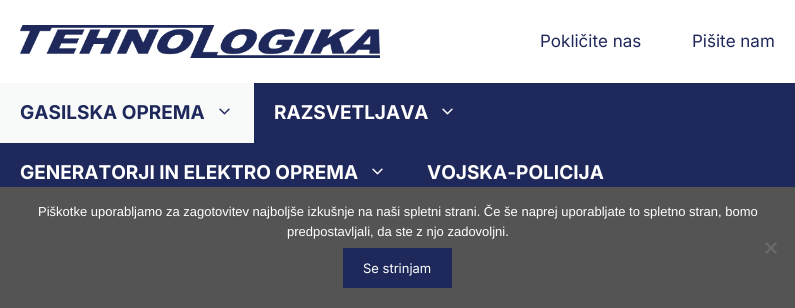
import math
import cairo


def paste(ctx, path, x, y, w, h):
	ctx.save()
	ctx.set_source_surface(cairo.ImageSurface.create_from_png(path), x, y)
	ctx.rectangle(x, y, w, h)
	ctx.fill()
	ctx.restore()

def draw(ctx):
	ctx.set_source_rgb(0.118, 0.157, 0.357)
	ctx.paint()
	ctx.set_source_rgb(1, 1, 1)
	ctx.rectangle(0, 0, 795, 83)
	ctx.fill()
	paste(ctx, 'media/1.png', 20, 25, 360, 33)
	ctx.select_font_face('Inter')
	ctx.set_font_size(17)
	ctx.set_source_rgb(0.118, 0.157, 0.357)
	ctx.move_to(540, 47)
	ctx.show_text('Pokličite nas')
	ctx.move_to(692, 47)
	ctx.show_text('Pišite nam')
	ctx.set_source_rgb(0.969, 0.973, 0.976)
	ctx.rectangle(0, 83, 254, 60)
	ctx.fill()
	ctx.select_font_face('Inter', cairo.FONT_SLANT_NORMAL, cairo.FONT_WEIGHT_BOLD)
	ctx.set_font_size(19)
	ctx.set_source_rgb(0.118, 0.157, 0.357)
	ctx.move_to(20, 119)
	ctx.show_text('GASILSKA OPREMA')
	paste(ctx, 'media/2.png', 219, 108, 11, 7)
	ctx.set_source_rgb(1, 1, 1)
	ctx.move_to(274, 119)
	ctx.show_text('RAZSVETLJAVA')
	paste(ctx, 'media/3.png', 442, 108, 11, 7)
	ctx.move_to(20, 179)
	ctx.show_text('GENERATORJI IN ELEKTRO OPREMA')
	paste(ctx, 'media/3.png', 372, 168, 11, 7)
	ctx.move_to(427, 179)
	ctx.show_text('VOJSKA-POLICIJA')
	ctx.set_source_rgb(0.329, 0.329, 0.329)
	ctx.rectangle(0, 187, 795, 121)
	ctx.fill()
	ctx.select_font_face('Liberation Sans')
	ctx.set_font_size(13)
	ctx.set_source_rgb(1, 1, 1)
	ctx.move_to(38, 216)
	ctx.show_text('Piškotke uporabljamo za zagotovitev najboljše izkušnje na naši spletni strani. Če še naprej uporabljate to spletno stran, bomo')
	ctx.move_to(287, 236)
	ctx.show_text('predpostavljali, da ste z njo zadovoljni.')
	ctx.set_source_rgb(0.416, 0.416, 0.416)
	ctx.new_path()
	ctx.move_to(775.5, 242)
	ctx.line_to(777, 243.5)
	ctx.line_to(766.5, 254)
	ctx.line_to(765, 252.5)
	ctx.close_path()
	ctx.fill()
	ctx.new_path()
	ctx.move_to(765, 243.5)
	ctx.line_to(766.5, 242)
	ctx.line_to(777, 252.5)
	ctx.line_to(775.5, 254)
	ctx.close_path()
	ctx.fill()
	ctx.set_source_rgb(0.118, 0.157, 0.357)
	ctx.rectangle(343, 248, 109, 40)
	ctx.fill()
	ctx.select_font_face('Inter')
	ctx.set_source_rgb(1, 1, 1)
	ctx.move_to(363, 273)
	ctx.show_text('Se strinjam')


surface = cairo.ImageSurface(cairo.FORMAT_RGB24, 795, 308)
ctx = cairo.Context(surface)
options = cairo.FontOptions()
options.set_hint_metrics(cairo.HINT_METRICS_OFF)
options.set_hint_style(cairo.HINT_STYLE_NONE)
ctx.set_font_options(options)
ctx.set_miter_limit(4)
draw(ctx)
surface.write_to_png('image.png')
